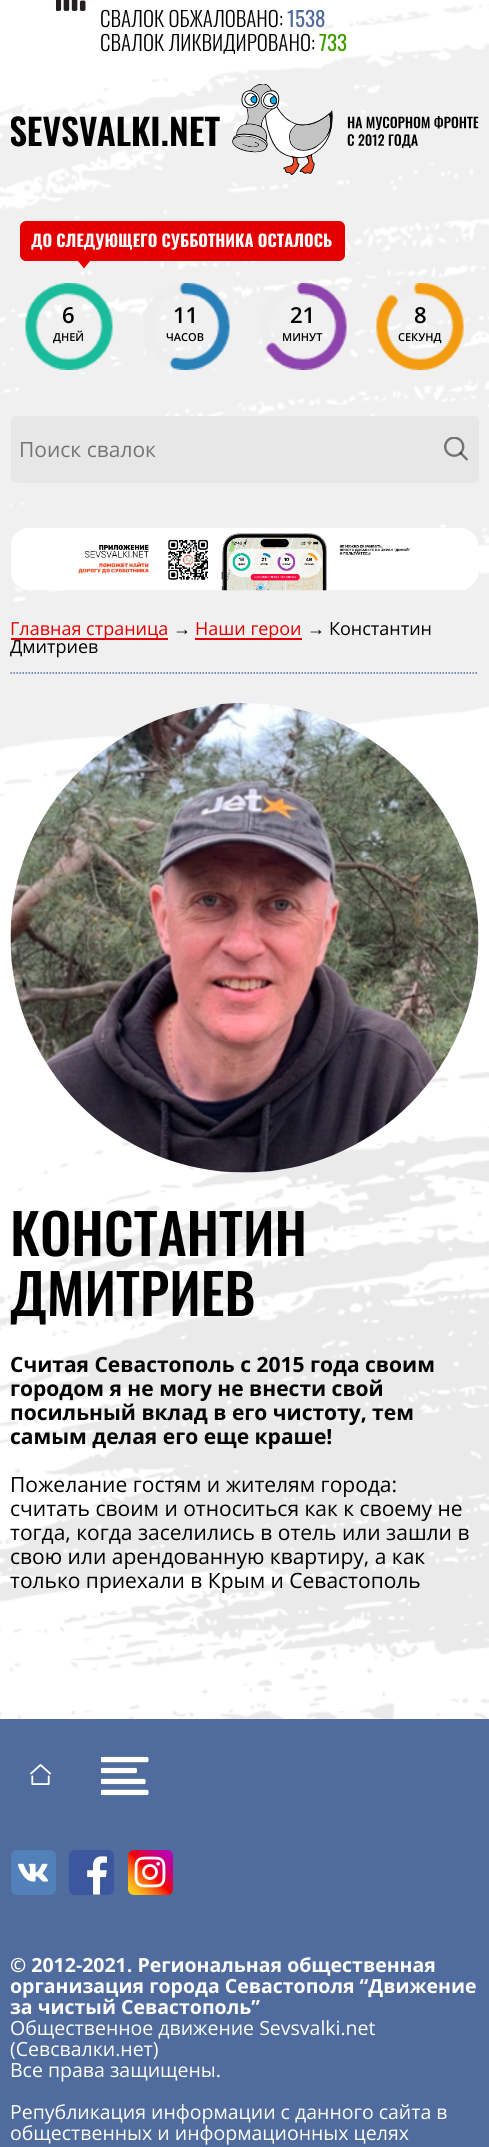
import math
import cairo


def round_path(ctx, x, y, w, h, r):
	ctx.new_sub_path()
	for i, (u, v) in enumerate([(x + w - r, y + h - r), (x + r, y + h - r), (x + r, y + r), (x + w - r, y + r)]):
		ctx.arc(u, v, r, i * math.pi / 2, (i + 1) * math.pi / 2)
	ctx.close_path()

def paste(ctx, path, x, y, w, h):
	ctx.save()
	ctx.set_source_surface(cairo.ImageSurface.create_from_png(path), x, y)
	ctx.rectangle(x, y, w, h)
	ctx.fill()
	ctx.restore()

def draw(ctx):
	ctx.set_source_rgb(1, 1, 1)
	ctx.paint()
	paste(ctx, 'media/1.png', 0, 4, 489, 792)
	paste(ctx, 'media/2.png', 0, 1072, 489, 647)
	paste(ctx, 'media/3.png', 56, 0, 30, 11)
	ctx.select_font_face('Oswald Light')
	ctx.set_font_size(21)
	ctx.set_source_rgb(0, 0, 0)
	ctx.move_to(100, 27)
	ctx.show_text('СВАЛОК ОБЖАЛОВАНО:')
	ctx.select_font_face('Oswald')
	ctx.set_source_rgb(0.314, 0.424, 0.62)
	ctx.move_to(287, 27)
	ctx.show_text('1538')
	ctx.select_font_face('Oswald Light')
	ctx.set_source_rgb(0, 0, 0)
	ctx.move_to(100, 51)
	ctx.show_text('СВАЛОК ЛИКВИДИРОВАНО:')
	ctx.select_font_face('Oswald')
	ctx.set_source_rgb(0.251, 0.62, 0)
	ctx.move_to(319, 51)
	ctx.show_text('733')
	paste(ctx, 'media/4.png', 11, 84, 468, 91)
	ctx.set_source_rgb(0.894, 0, 0)
	round_path(ctx, 20, 221, 325, 40, 6)
	ctx.fill()
	ctx.select_font_face('Oswald', cairo.FONT_SLANT_NORMAL, cairo.FONT_WEIGHT_BOLD)
	ctx.set_font_size(16.5)
	ctx.set_source_rgb(1, 1, 1)
	ctx.move_to(31, 247)
	ctx.show_text('ДО СЛЕДУЮЩЕГО СУББОТНИКА ОСТАЛОСЬ')
	ctx.set_source_rgb(0.894, 0, 0)
	ctx.new_path()
	ctx.move_to(78, 261)
	ctx.line_to(90, 261)
	ctx.line_to(84, 268.5)
	ctx.close_path()
	ctx.fill()
	paste(ctx, 'media/5.png', 25, 283, 88, 87)
	ctx.select_font_face('Open Sans SemiBold')
	ctx.set_font_size(22)
	ctx.set_source_rgb(0, 0, 0)
	ctx.move_to(62, 323)
	ctx.show_text('6')
	ctx.set_font_size(11)
	ctx.move_to(53, 341)
	ctx.show_text('ДНЕЙ')
	paste(ctx, 'media/6.png', 145, 283, 85, 87)
	ctx.set_font_size(22)
	ctx.move_to(173, 323)
	ctx.show_text('11')
	ctx.set_font_size(11)
	ctx.move_to(166, 341)
	ctx.show_text('ЧАСОВ')
	paste(ctx, 'media/7.png', 261, 283, 86, 87)
	ctx.set_font_size(22)
	ctx.move_to(290, 323)
	ctx.show_text('21')
	ctx.set_font_size(11)
	ctx.move_to(282, 341)
	ctx.show_text('МИНУТ')
	paste(ctx, 'media/8.png', 376, 283, 88, 87)
	ctx.set_font_size(22)
	ctx.move_to(414, 323)
	ctx.show_text('8')
	ctx.set_font_size(11)
	ctx.move_to(398, 341)
	ctx.show_text('СЕКУНД')
	ctx.set_source_rgb(0.906, 0.906, 0.906)
	round_path(ctx, 11, 416, 468, 67, 6)
	ctx.fill()
	ctx.select_font_face('Open Sans')
	ctx.set_font_size(21)
	ctx.set_source_rgb(0.459, 0.459, 0.459)
	ctx.move_to(19, 457)
	ctx.show_text('Поиск свалок')
	paste(ctx, 'media/9.png', 444, 437, 24, 24)
	paste(ctx, 'media/10.png', 11, 528, 467, 63)
	ctx.new_path()
	ctx.move_to(10.5, 673)
	ctx.line_to(478.5, 673)
	ctx.set_source_rgb(0.314, 0.424, 0.62)
	ctx.set_line_width(1.5)
	ctx.set_dash([1.5, 1.5])
	ctx.stroke()
	ctx.set_source_rgb(0.894, 0, 0)
	ctx.rectangle(11, 638, 157, 2)
	ctx.fill()
	ctx.set_font_size(18)
	ctx.move_to(10, 635)
	ctx.show_text('Главная страница')
	ctx.select_font_face('Liberation Sans')
	ctx.set_source_rgb(0, 0, 0)
	ctx.move_to(173, 635)
	ctx.show_text('→')
	ctx.set_source_rgb(0.894, 0, 0)
	ctx.rectangle(195, 638, 107, 2)
	ctx.fill()
	ctx.select_font_face('Open Sans')
	ctx.move_to(195, 635)
	ctx.show_text('Наши герои')
	ctx.select_font_face('Liberation Sans')
	ctx.set_source_rgb(0, 0, 0)
	ctx.move_to(307, 635)
	ctx.show_text('→')
	ctx.select_font_face('Open Sans')
	ctx.move_to(329, 635)
	ctx.show_text('Константин')
	ctx.move_to(10, 653)
	ctx.show_text('Дмитриев')
	paste(ctx, 'media/11.png', 10, 703, 469, 470)
	ctx.select_font_face('Oswald Medium')
	ctx.set_font_size(55.5)
	ctx.move_to(10, 1256)
	ctx.show_text('КОНСТАНТИН')
	ctx.move_to(10, 1316)
	ctx.show_text('ДМИТРИЕВ')
	ctx.select_font_face('Open Sans', cairo.FONT_SLANT_NORMAL, cairo.FONT_WEIGHT_BOLD)
	ctx.set_font_size(21)
	for x, y, s in [
		(10, 1372, 'Считая Севастополь с 2015 года своим'),
		(10, 1396, 'городом я не могу не внести свой'),
		(10, 1420, 'посильный вклад в его чистоту, тем'),
		(10, 1444, 'самым делая его еще краше!'),
	]:
		ctx.move_to(x, y)
		ctx.show_text(s)
	ctx.select_font_face('Open Sans')
	for x, y, s in [
		(10, 1492, 'Пожелание гостям и жителям города:'),
		(10, 1516, 'считать своим и относиться как к своему не'),
		(10, 1540, 'тогда, когда заселились в отель или зашли в'),
		(10, 1564, 'свою или арендованную квартиру, а как'),
		(10, 1588, 'только приехали в Крым и Севастополь'),
	]:
		ctx.move_to(x, y)
		ctx.show_text(s)
	ctx.set_source_rgb(0.314, 0.424, 0.62)
	ctx.rectangle(0, 1719, 489, 428)
	ctx.fill()
	paste(ctx, 'media/12.png', 30, 1764, 21, 21)
	paste(ctx, 'media/13.png', 101, 1756, 48, 40)
	paste(ctx, 'media/14.png', 11, 1850, 45, 45)
	paste(ctx, 'media/15.png', 69, 1850, 45, 45)
	paste(ctx, 'media/16.png', 128, 1850, 45, 45)
	ctx.select_font_face('Open Sans', cairo.FONT_SLANT_NORMAL, cairo.FONT_WEIGHT_BOLD)
	ctx.set_font_size(19.5)
	ctx.set_source_rgb(1, 1, 1)
	for x, y, s in [
		(10, 1972, '© 2012-2021. Региональная общественная'),
		(10, 1993, 'организация города Севастополя “Движение'),
		(10, 2014, 'за чистый Севастополь”'),
	]:
		ctx.move_to(x, y)
		ctx.show_text(s)
	ctx.select_font_face('Open Sans')
	for x, y, s in [
		(10, 2035, 'Общественное движение Sevsvalki.net'),
		(10, 2056, '(Севсвалки.нет)'),
		(10, 2077, 'Все права защищены.'),
		(10, 2119, 'Републикация информации с данного сайта в'),
		(10, 2140, 'общественных и информационных целях'),
	]:
		ctx.move_to(x, y)
		ctx.show_text(s)


surface = cairo.ImageSurface(cairo.FORMAT_RGB24, 489, 2147)
ctx = cairo.Context(surface)
options = cairo.FontOptions()
options.set_hint_metrics(cairo.HINT_METRICS_OFF)
options.set_hint_style(cairo.HINT_STYLE_NONE)
ctx.set_font_options(options)
ctx.set_miter_limit(4)
draw(ctx)
surface.write_to_png('image.png')
